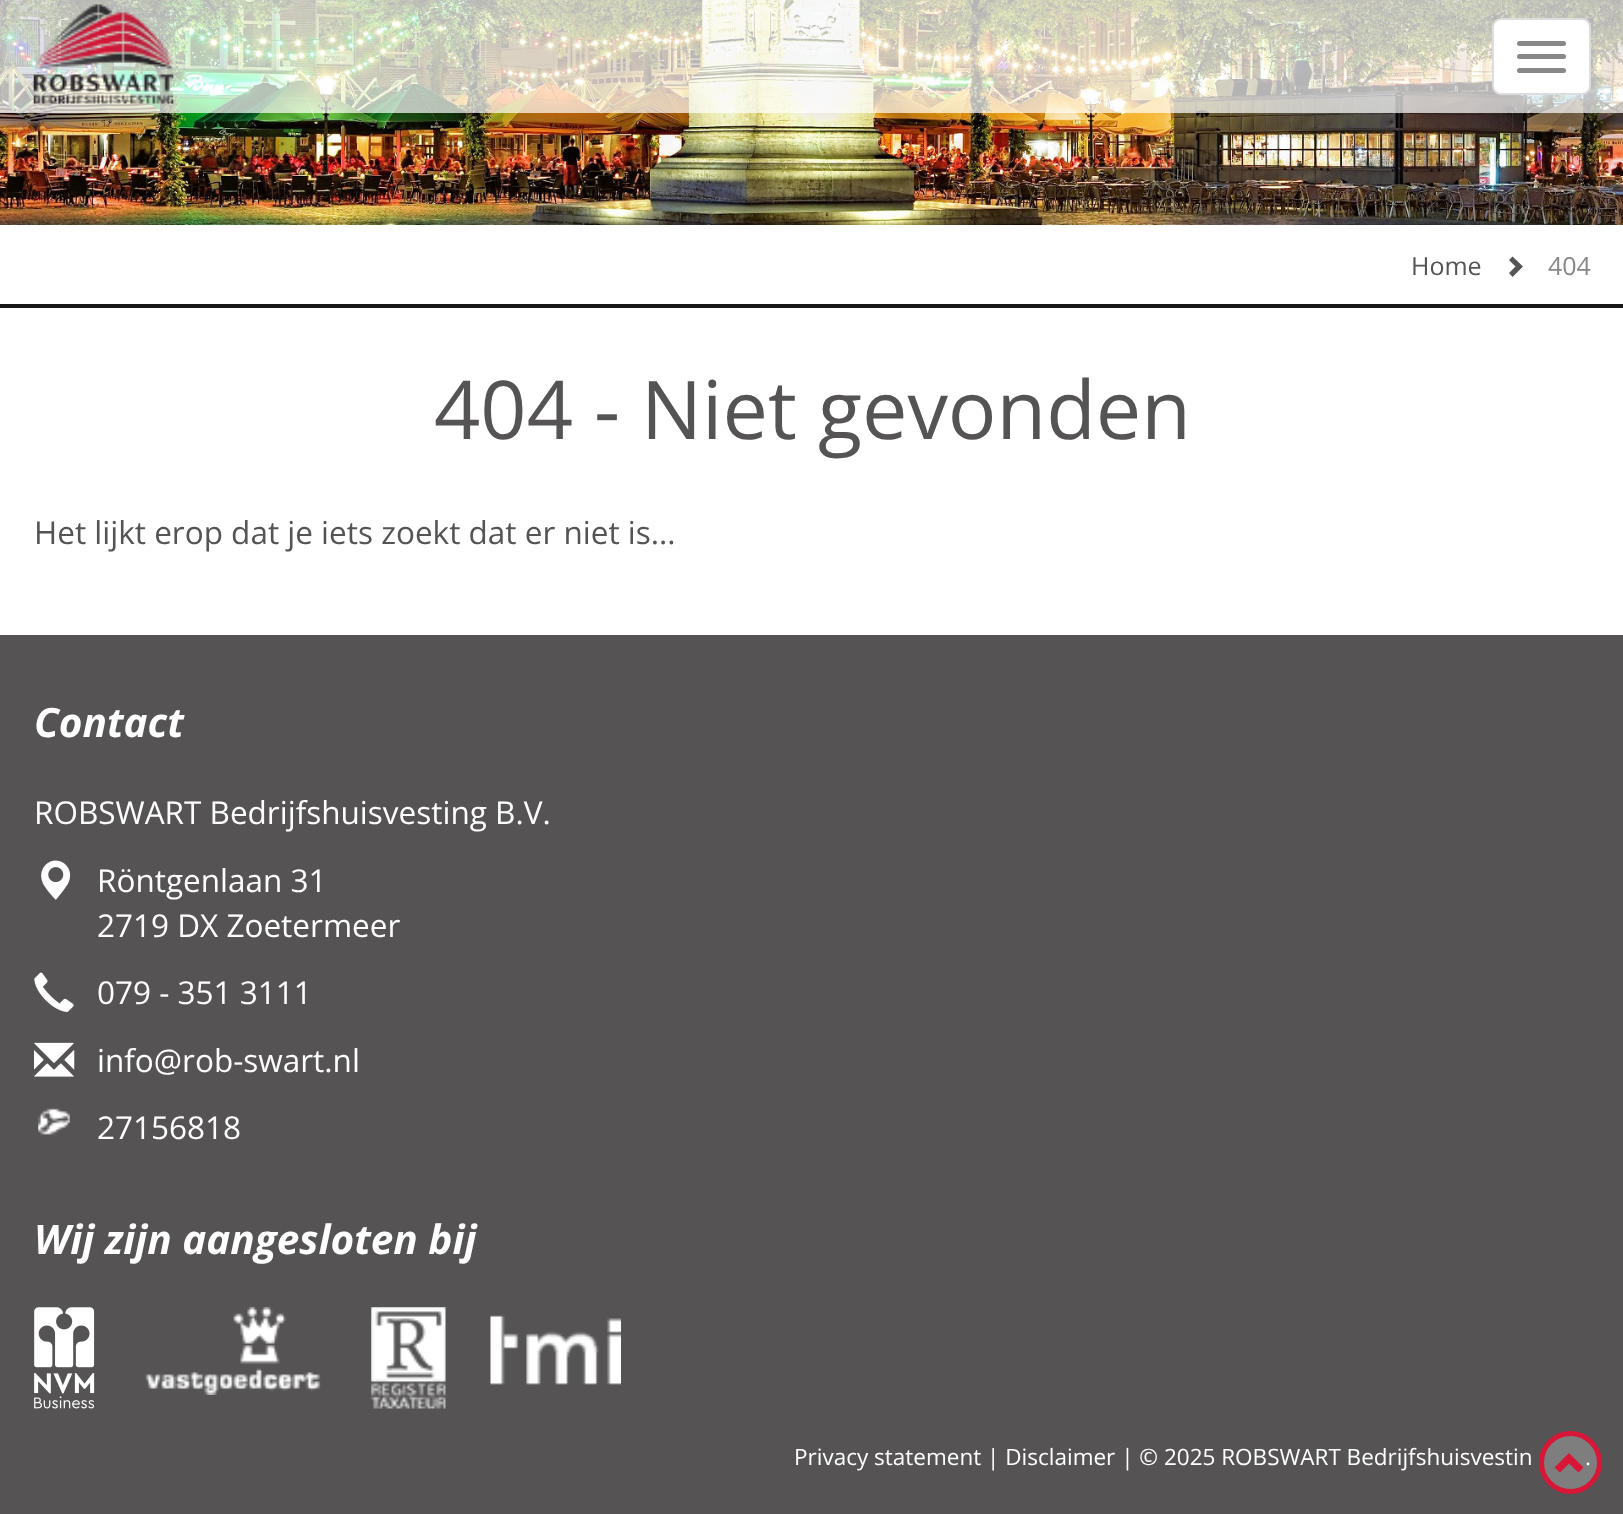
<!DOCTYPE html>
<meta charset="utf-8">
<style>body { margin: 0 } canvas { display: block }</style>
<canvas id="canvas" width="1623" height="1514"></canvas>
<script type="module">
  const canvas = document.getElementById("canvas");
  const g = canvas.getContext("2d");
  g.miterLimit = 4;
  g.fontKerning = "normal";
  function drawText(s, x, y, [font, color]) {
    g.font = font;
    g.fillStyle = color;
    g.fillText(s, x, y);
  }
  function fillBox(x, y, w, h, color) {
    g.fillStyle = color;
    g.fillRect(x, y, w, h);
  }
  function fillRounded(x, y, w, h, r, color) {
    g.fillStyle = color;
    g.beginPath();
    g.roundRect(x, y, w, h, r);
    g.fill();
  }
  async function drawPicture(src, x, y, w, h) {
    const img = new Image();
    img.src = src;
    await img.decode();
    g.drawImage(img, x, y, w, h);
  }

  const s1 = ["25px Open Sans", "#555353"];
  const s2 = ["25px Open Sans", "#888787"];
  const s3 = ["81px Open Sans", "#555353"];
  const s4 = ["31.5px Open Sans", "#555353"];
  const s5 = ["italic bold 40.5px Open Sans", "#FFFFFF"];
  const s6 = ["31.5px Open Sans", "#FFFFFF"];
  const s7 = ["22.5px Open Sans", "#FFFFFF"];

  fillBox(0, 0, 1623, 1514, "#555353");
  await drawPicture("pic1.png", 0, 0, 1623, 225);
  fillBox(0, 0, 1623, 113, "rgba(255, 255, 255, 0.7)");
  await drawPicture("pic2.png", 33, 4, 141, 100);
  g.fillStyle = "#FFFFFF";
  g.beginPath();
  g.roundRect(1493, 19, 97, 75, 8);
  g.fill();
  g.strokeStyle = "#DDDDDD";
  g.lineWidth = 2;
  g.stroke();
  fillRounded(1517, 41, 49, 5, 2.5, "#888888");
  fillRounded(1517, 54, 49, 5, 2.5, "#888888");
  fillRounded(1517, 68, 49, 5, 2.5, "#888888");
  fillBox(0, 225, 1623, 79, "#FFFFFF");
  fillBox(0, 304, 1623, 4, "#17171A");
  drawText("Home", 1411, 275, s1);
  g.beginPath();
  g.moveTo(1523, 266.5);
  g.lineTo(1512.5, 277);
  g.lineTo(1509, 273);
  g.lineTo(1515.5, 266.5);
  g.lineTo(1509, 260);
  g.lineTo(1512.5, 256.5);
  g.closePath();
  g.fill();
  drawText("404", 1548, 275, s2);
  fillBox(0, 308, 1623, 327, "#FFFFFF");
  drawText("404 - Niet gevonden", 434, 439, s3);
  drawText("Het lijkt erop dat je iets zoekt dat er niet is...", 34, 544, s4);
  drawText("Contact", 34, 737, s5);
  drawText("ROBSWART Bedrijfshuisvesting B.V.", 34, 824, s6);
  await drawPicture("pic3.png", 41, 860, 30, 40);
  drawText("Röntgenlaan 31", 97, 892, s6);
  drawText("2719 DX Zoetermeer", 97, 937, s6);
  await drawPicture("pic4.png", 34, 972, 40, 40);
  drawText("079 - 351 3111", 97, 1004, s6);
  await drawPicture("pic5.png", 34, 1042, 41, 35);
  drawText("info@rob-swart.nl", 97, 1072, s6);
  await drawPicture("pic6.png", 38, 1108, 32, 27);
  drawText("27156818", 97, 1139, s6);
  drawText("Wij zijn aangesloten bij", 34, 1254, s5);
  await drawPicture("pic7.png", 34, 1307, 61, 102);
  await drawPicture("pic8.png", 145, 1307, 176, 88);
  await drawPicture("pic9.png", 371, 1307, 75, 102);
  await drawPicture("pic10.png", 490, 1315, 131, 70);
  drawText("Privacy statement | Disclaimer | © 2025 ROBSWART Bedrijfshuisvestin", 794, 1465, s7);
  drawText(".", 1585, 1465, s7);
  g.fillStyle = "rgba(255, 255, 255, 0.25)";
  g.beginPath();
  g.arc(1570.5, 1462.5, 29, 0, Math.PI * 2);
  g.fill();
  g.strokeStyle = "#D71638";
  g.lineWidth = 5;
  g.stroke();
  g.fillStyle = "#D71638";
  g.beginPath();
  g.moveTo(1583.5, 1467.5);
  g.lineTo(1578.5, 1472.5);
  g.lineTo(1569, 1463.5);
  g.lineTo(1560, 1472.5);
  g.lineTo(1554.5, 1467.5);
  g.lineTo(1569, 1453);
  g.closePath();
  g.fill();
</script>
